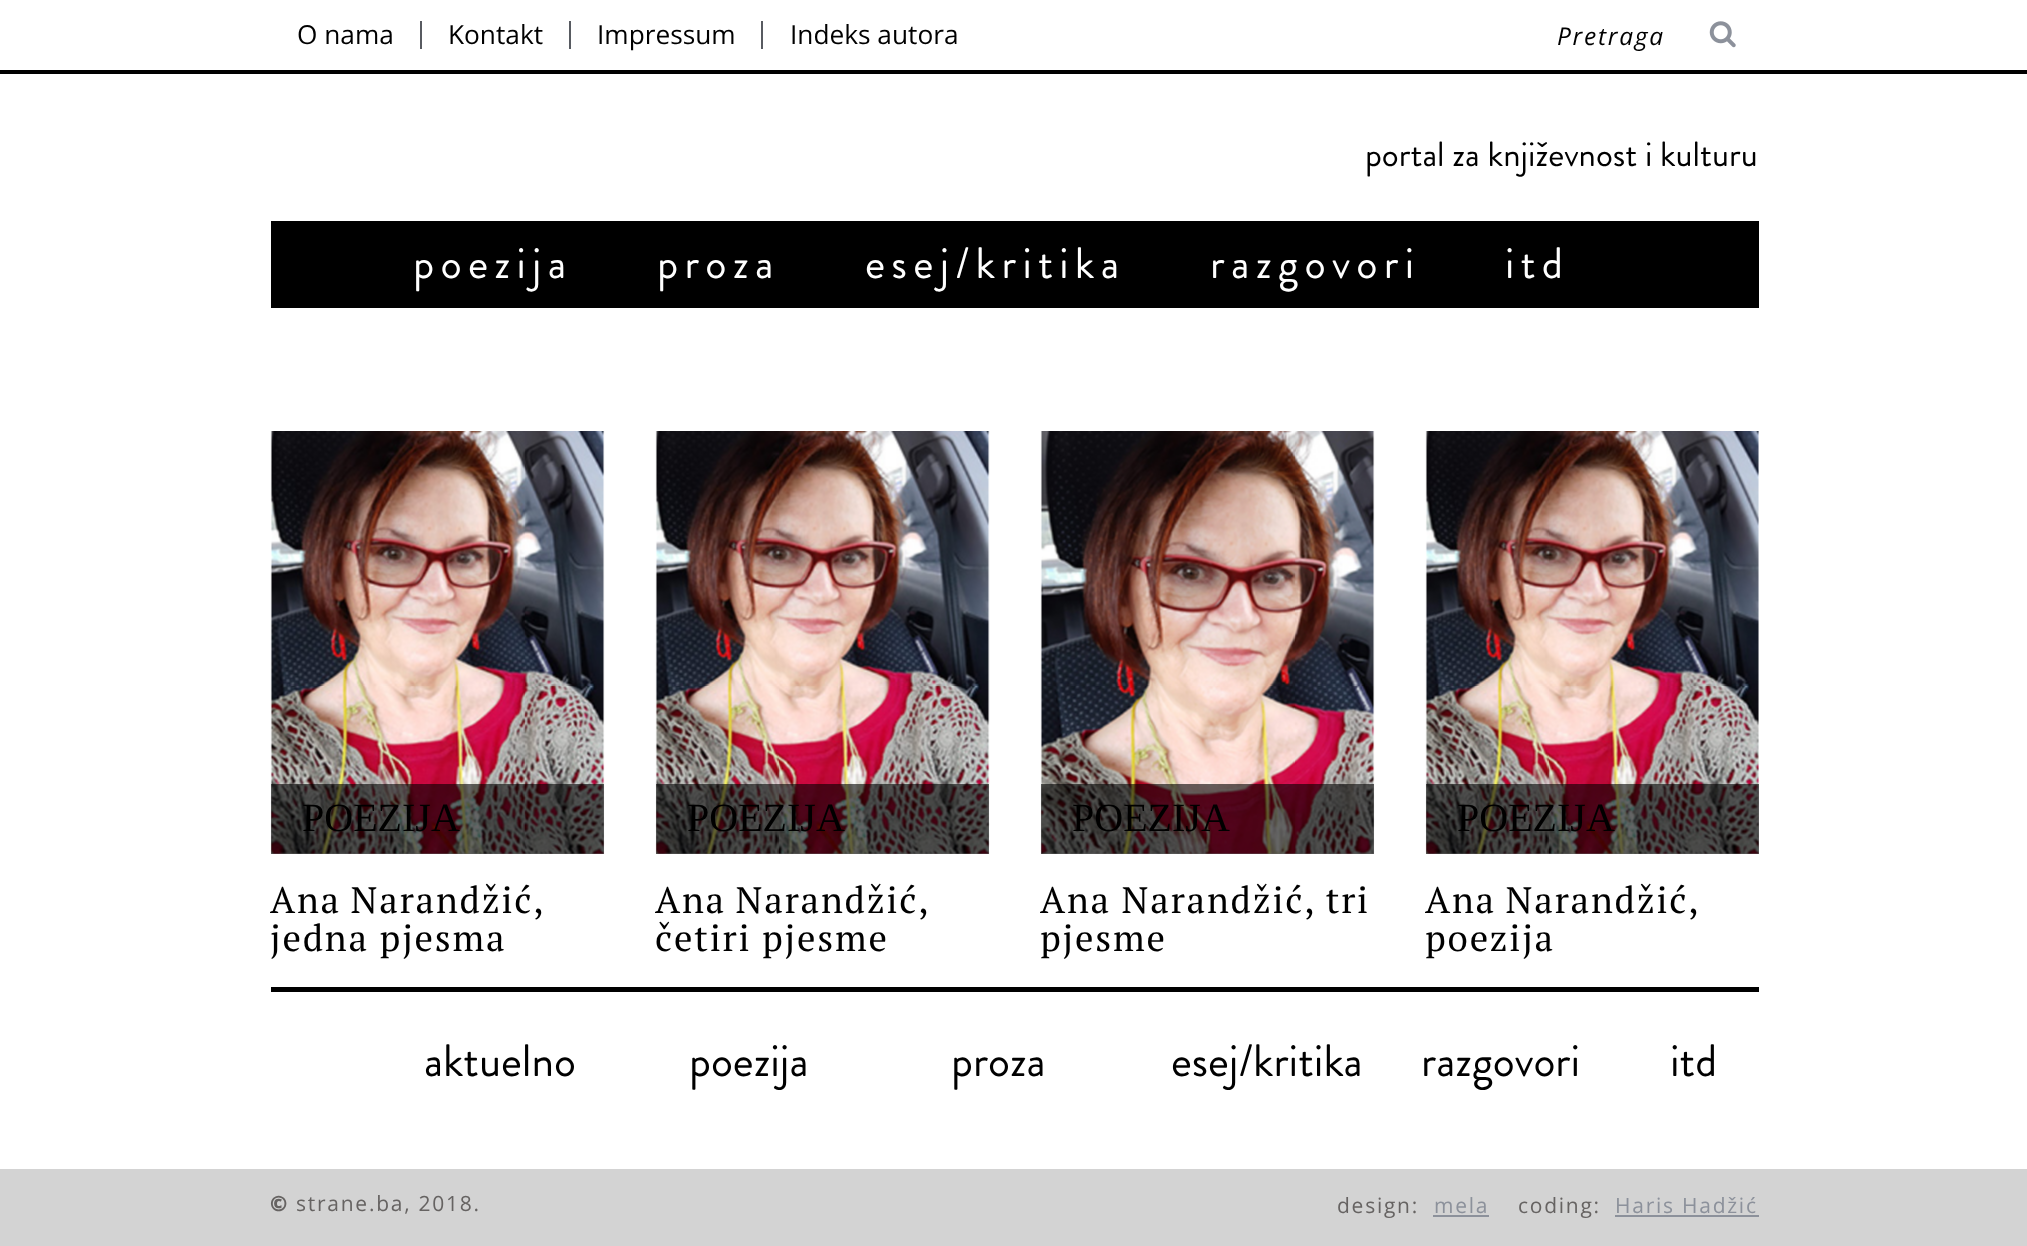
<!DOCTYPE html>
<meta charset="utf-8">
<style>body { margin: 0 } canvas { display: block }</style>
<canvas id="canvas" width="2027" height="1246"></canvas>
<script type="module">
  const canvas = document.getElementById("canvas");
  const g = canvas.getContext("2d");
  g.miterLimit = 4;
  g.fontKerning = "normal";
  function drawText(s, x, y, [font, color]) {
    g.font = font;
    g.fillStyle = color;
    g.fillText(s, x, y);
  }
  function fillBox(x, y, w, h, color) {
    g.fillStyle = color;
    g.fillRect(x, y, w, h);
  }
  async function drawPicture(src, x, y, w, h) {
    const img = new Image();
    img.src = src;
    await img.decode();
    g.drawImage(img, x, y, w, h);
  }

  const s1 = ["26.25px Open Sans", "#000000"];
  const s2 = ["italic 24.5px Open Sans", "#000000"];
  const s3 = ["35px Brandon Grotesque", "#000000"];
  const s4 = ["44px Brandon Grotesque", "#FFFFFF"];
  const s5 = ["40px Liberation Serif", "#000000"];
  const s6 = ["36.75px PT Serif", "#000000"];
  const s7 = ["45.5px Brandon Grotesque", "#000000"];
  const s8 = ["900 21px Noto Sans", "#666362"];
  const s9 = ["21px Open Sans", "#666362"];
  const s10 = ["21px Open Sans", "#8C919B"];

  fillBox(0, 0, 2027, 1246, "#FFFFFF");
  fillBox(0, 70, 2027, 4, "#000000");
  fillBox(420, 21, 2, 28, "#585B61");
  drawText("O nama", 297, 44, s1);
  fillBox(569, 21, 2, 28, "#585B61");
  drawText("Kontakt", 448, 44, s1);
  fillBox(761, 21, 2, 28, "#585B61");
  drawText("Impressum", 597, 44, s1);
  drawText("Indeks autora", 790, 44, s1);
  g.letterSpacing = "1.75px";
  drawText("Pretraga", 1557, 45, s2);
  await drawPicture("pic1.png", 1709, 21, 27, 27);
  g.letterSpacing = "0px";
  drawText("portal za književnost i kulturu", 1365, 166, s3);
  fillBox(271, 221, 1488, 87, "#000000");
  g.letterSpacing = "6.25px";
  drawText("poezija", 413, 278, s4);
  drawText("proza", 657, 278, s4);
  drawText("esej/kritika", 865, 278, s4);
  drawText("razgovori", 1210, 278, s4);
  drawText("itd", 1505, 278, s4);
  await drawPicture("pic2.png", 270, 431, 335, 423);
  fillBox(271, 784, 333, 70, "rgba(0, 0, 0, 0.6)");
  g.letterSpacing = "0px";
  drawText("POEZIJA", 302, 831, s5);
  g.letterSpacing = "1.8px";
  g.wordSpacing = "-1px";
  drawText("Ana Narandžić,", 270, 913, s6);
  g.wordSpacing = "0px";
  drawText("jedna pjesma", 270, 951, s6);
  await drawPicture("pic3.png", 655, 431, 335, 423);
  fillBox(656, 784, 333, 70, "rgba(0, 0, 0, 0.6)");
  g.letterSpacing = "0px";
  drawText("POEZIJA", 687, 831, s5);
  g.letterSpacing = "1.8px";
  g.wordSpacing = "-1px";
  drawText("Ana Narandžić,", 655, 913, s6);
  g.wordSpacing = "0px";
  drawText("četiri pjesme", 655, 951, s6);
  await drawPicture("pic4.png", 1040, 431, 335, 423);
  fillBox(1041, 784, 333, 70, "rgba(0, 0, 0, 0.6)");
  g.letterSpacing = "0px";
  drawText("POEZIJA", 1072, 831, s5);
  g.letterSpacing = "1.8px";
  drawText("Ana Narandžić, tri", 1040, 913, s6);
  drawText("pjesme", 1040, 951, s6);
  await drawPicture("pic5.png", 1425, 431, 334, 423);
  fillBox(1426, 784, 333, 70, "rgba(0, 0, 0, 0.6)");
  g.letterSpacing = "0px";
  drawText("POEZIJA", 1457, 831, s5);
  g.letterSpacing = "1.8px";
  g.wordSpacing = "-1px";
  drawText("Ana Narandžić,", 1425, 913, s6);
  g.wordSpacing = "0px";
  drawText("poezija", 1425, 951, s6);
  fillBox(271, 987, 1488, 5, "#000000");
  g.letterSpacing = "0px";
  drawText("aktuelno", 424, 1076, s7);
  drawText("poezija", 689, 1076, s7);
  drawText("proza", 951, 1076, s7);
  drawText("esej/kritika", 1171, 1076, s7);
  drawText("razgovori", 1421, 1076, s7);
  drawText("itd", 1670, 1076, s7);
  fillBox(0, 1169, 2027, 77, "#D3D3D3");
  g.letterSpacing = "1.75px";
  drawText("©", 270, 1211, s8);
  drawText("strane.ba, 2018.", 296, 1211, s9);
  drawText("design:", 1337, 1213, s9);
  drawText("mela", 1434, 1213, s10);
  fillBox(1433, 1215, 56, 2, "#8C919B");
  drawText("coding:", 1518, 1213, s9);
  drawText("Haris Hadžić", 1615, 1213, s10);
  fillBox(1615, 1215, 144, 2, "#8C919B");
</script>
